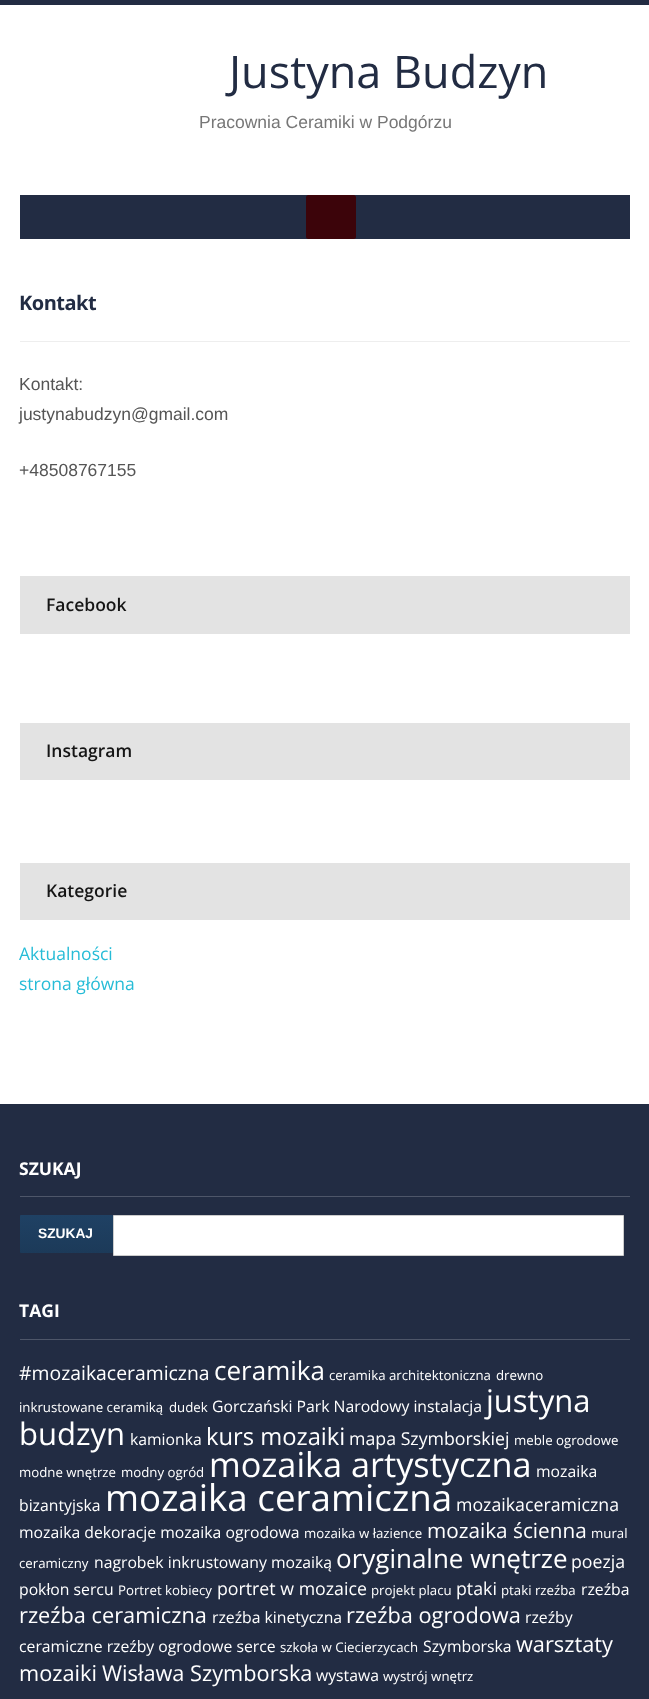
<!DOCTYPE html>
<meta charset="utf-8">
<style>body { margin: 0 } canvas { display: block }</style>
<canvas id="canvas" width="649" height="1699"></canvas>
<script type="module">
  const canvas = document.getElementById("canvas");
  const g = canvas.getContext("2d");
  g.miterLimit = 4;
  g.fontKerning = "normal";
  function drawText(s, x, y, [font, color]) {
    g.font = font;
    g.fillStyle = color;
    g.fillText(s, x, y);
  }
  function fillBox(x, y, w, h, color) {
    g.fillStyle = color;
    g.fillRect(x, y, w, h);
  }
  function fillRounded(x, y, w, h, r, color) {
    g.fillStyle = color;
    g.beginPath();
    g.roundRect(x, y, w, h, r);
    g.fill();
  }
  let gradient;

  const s1 = ["45px Open Sans", "#222C43"];
  const s2 = ["17.5px Liberation Sans", "#777777"];
  const s3 = ["bold 20px Open Sans", "#222C43"];
  const s4 = ["17.5px Liberation Sans", "#555555"];
  const s5 = ["600 17.5px Open Sans", "#151515"];
  const s6 = ["17.5px Open Sans", "#26BCD7"];
  const s7 = ["bold 17.5px Open Sans", "#FFFFFF"];
  const s8 = ["bold 13.75px Liberation Sans", "#FFFFFF"];
  const s9 = ["19.4px Open Sans", "#FFFFFF"];
  const s10 = ["26px Open Sans", "#FFFFFF"];
  const s11 = ["13.25px Open Sans", "#FFFFFF"];
  const s12 = ["15.75px Open Sans", "#FFFFFF"];
  const s13 = ["31px Open Sans", "#FFFFFF"];
  const s14 = ["23.75px Open Sans", "#FFFFFF"];
  const s15 = ["17.75px Open Sans", "#FFFFFF"];
  const s16 = ["34.25px Open Sans", "#FFFFFF"];
  const s17 = ["36.75px Open Sans", "#FFFFFF"];
  const s18 = ["20.75px Open Sans", "#FFFFFF"];
  const s19 = ["21.75px Open Sans", "#FFFFFF"];

  fillBox(0, 0, 649, 1699, "#FFFFFF");
  fillBox(0, 0, 649, 5, "#222C43");
  drawText("Justyna Budzyn", 229, 88, s1);
  drawText("Pracownia Ceramiki w Podgórzu", 199, 128, s2);
  fillBox(20, 195, 610, 44, "#222C43");
  fillRounded(306, 195, 50, 44, 2.5, "#3C040A");
  g.letterSpacing = "-0.5px";
  drawText("Kontakt", 19, 310, s3);
  fillBox(20, 341, 610, 1, "#EEEEEE");
  g.letterSpacing = "0px";
  drawText("Kontakt:", 19, 390, s4);
  drawText("justynabudzyn@gmail.com", 19, 420, s4);
  drawText("+48508767155", 19, 476, s4);
  fillBox(20, 576, 610, 58, "#E3E3E3");
  drawText("Facebook", 46, 611, s5);
  fillBox(20, 723, 610, 57, "#E3E3E3");
  drawText("Instagram", 46, 757, s5);
  fillBox(20, 863, 610, 57, "#E3E3E3");
  drawText("Kategorie", 46, 897, s5);
  drawText("Aktualności", 19, 960, s6);
  drawText("strona główna", 19, 990, s6);
  fillBox(0, 1104, 649, 595, "#222C43");
  fillBox(20, 1196, 610, 1, "#4E5669");
  drawText("SZUKAJ", 19, 1175, s7);
  gradient = g.createLinearGradient(66, 1215, 66, 1253);
  gradient.addColorStop(0, "#1F4164");
  gradient.addColorStop(1, "#1C3A59");
  g.fillStyle = gradient;
  g.beginPath();
  g.roundRect(20, 1215, 93, 38, 1);
  g.fill();
  drawText("SZUKAJ", 38, 1238, s8);
  g.beginPath();
  g.rect(113.5, 1215.5, 510, 40);
  g.fill();
  g.strokeStyle = "#CCCCCC";
  g.stroke();
  fillBox(20, 1339, 610, 1, "#4E5669");
  drawText("TAGI", 19, 1317, s7);
  drawText("#mozaikaceramiczna", 19, 1380, s9);
  drawText("ceramika", 214, 1380, s10);
  drawText("ceramika architektoniczna", 329, 1380, s11);
  drawText("drewno", 496, 1380, s11);
  drawText("inkrustowane ceramiką", 19, 1412, s11);
  drawText("dudek", 169, 1412, s11);
  drawText("Gorczański Park Narodowy instalacja", 212, 1412, s12);
  drawText("justyna", 486, 1412, s13);
  drawText("budzyn", 19, 1445, s13);
  drawText("kamionka", 130, 1445, s12);
  drawText("kurs mozaiki", 206, 1445, s14);
  drawText("mapa Szymborskiej", 349, 1445, s15);
  drawText("meble ogrodowe", 514, 1445, s11);
  drawText("modne wnętrze", 19, 1477, s11);
  drawText("modny ogród", 121, 1477, s11);
  drawText("mozaika artystyczna", 209, 1477, s16);
  drawText("mozaika", 536, 1477, s12);
  drawText("bizantyjska", 19, 1511, s12);
  drawText("mozaika ceramiczna", 105, 1511, s17);
  drawText("mozaikaceramiczna", 456, 1511, s15);
  drawText("mozaika dekoracje mozaika ogrodowa", 19, 1538, s12);
  drawText("mozaika w łazience", 304, 1538, s11);
  drawText("mozaika ścienna", 427, 1538, s18);
  drawText("mural", 591, 1538, s11);
  drawText("ceramiczny", 19, 1568, s11);
  drawText("nagrobek inkrustowany mozaiką", 94, 1568, s12);
  drawText("oryginalne wnętrze", 336, 1568, s10);
  drawText("poezja", 571, 1568, s15);
  drawText("pokłon sercu", 19, 1595, s12);
  drawText("Portret kobiecy", 118, 1595, s11);
  drawText("portret w mozaice", 217, 1595, s15);
  drawText("projekt placu", 371, 1595, s11);
  drawText("ptaki", 456, 1595, s15);
  drawText("ptaki rzeźba", 501, 1595, s11);
  drawText("rzeźba", 581, 1595, s12);
  drawText("rzeźba ceramiczna", 19, 1623, s19);
  drawText("rzeźba kinetyczna", 212, 1623, s12);
  drawText("rzeźba ogrodowa", 346, 1623, s19);
  drawText("rzeźby", 525, 1623, s12);
  drawText("ceramiczne rzeźby ogrodowe serce", 19, 1652, s12);
  drawText("szkoła w Ciecierzycach", 280, 1652, s11);
  drawText("Szymborska", 423, 1652, s12);
  drawText("warsztaty", 516, 1652, s19);
  drawText("mozaiki", 19, 1681, s19);
  drawText("Wisława Szymborska", 102, 1681, s19);
  drawText("wystawa", 316, 1681, s12);
  drawText("wystrój wnętrz", 383, 1681, s11);
</script>
